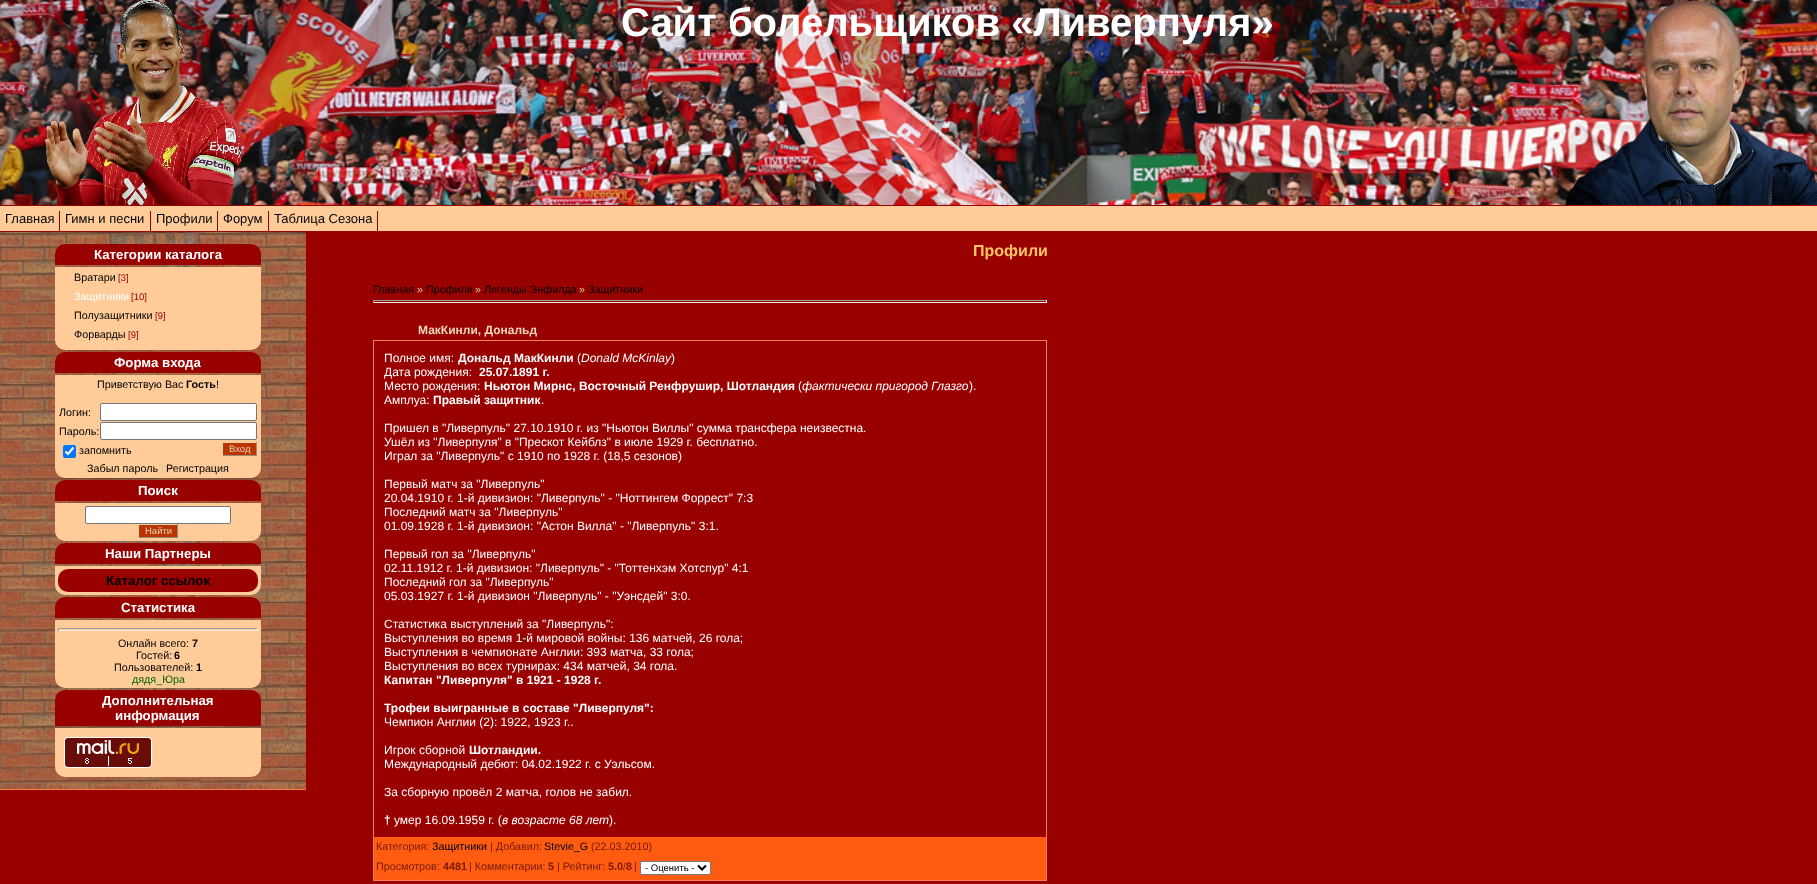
<!DOCTYPE html>
<meta charset="utf-8">
<style>body { margin: 0 } canvas { display: block }</style>
<canvas id="canvas" width="1817" height="884"></canvas>
<script type="module">
  const canvas = document.getElementById("canvas");
  const g = canvas.getContext("2d");
  g.miterLimit = 4;
  g.fontKerning = "normal";
  function drawText(s, x, y, [font, color]) {
    g.font = font;
    g.fillStyle = color;
    g.fillText(s, x, y);
  }
  function fillBox(x, y, w, h, color) {
    g.fillStyle = color;
    g.fillRect(x, y, w, h);
  }
  function fillRounded(x, y, w, h, r, color) {
    g.fillStyle = color;
    g.beginPath();
    g.roundRect(x, y, w, h, r);
    g.fill();
  }
  async function drawPicture(src, x, y, w, h) {
    const img = new Image();
    img.src = src;
    await img.decode();
    g.drawImage(img, x, y, w, h);
  }

  const s1 = ["bold 40px Liberation Sans", "#FFFFFF"];
  const s2 = ["13px Liberation Sans", "#000000"];
  const s3 = ["bold 13.25px Liberation Sans", "#FFFFFF"];
  const s4 = ["10.75px Liberation Sans", "#000000"];
  const s5 = ["9.5px Liberation Sans", "#990000"];
  const s6 = ["10.75px Liberation Sans", "#FFFFFF"];
  const s7 = ["bold 10.75px Liberation Sans", "#000000"];
  const s8 = ["9.5px Liberation Sans", "#EBD1B4"];
  const s9 = ["10.75px Liberation Sans", "#CCCC99"];
  const s10 = ["bold 13.25px Liberation Sans", "#000000"];
  const s11 = ["10.75px Liberation Sans", "#006400"];
  const s12 = ["bold 16px Liberation Sans", "#FFC565"];
  const s13 = ["bold 12px Liberation Sans", "#F3D9BB"];
  const s14 = ["12px Liberation Sans", "#FFFFFF"];
  const s15 = ["bold 12px Liberation Sans", "#FFFFFF"];
  const s16 = ["italic 12px Liberation Sans", "#FFFFFF"];
  const s17 = ["10.75px Liberation Sans", "#781903"];
  const s18 = ["bold 10.75px Liberation Sans", "#781903"];
  const s19 = ["9.5px Liberation Sans", "#000000"];

  fillBox(0, 0, 1817, 884, "#990000");
  await drawPicture("pic1.png", 0, 0, 1817, 205);
  await drawPicture("pic2.png", 45, 0, 198, 205);
  drawText("Сайт болельщиков «Ливерпуля»", 621, 36, s1);
  await drawPicture("pic3.png", 1565, 1, 252, 204);
  fillBox(0, 206, 1817, 25, "#FFCC99");
  fillBox(59, 211, 1, 20, "#990000");
  drawText("Главная", 5, 223, s2);
  fillBox(150, 211, 1, 20, "#990000");
  drawText("Гимн и песни", 65, 223, s2);
  fillBox(217, 211, 1, 20, "#990000");
  drawText("Профили", 156, 223, s2);
  fillBox(268, 211, 1, 20, "#990000");
  drawText("Форум", 223, 223, s2);
  fillBox(377, 211, 1, 20, "#990000");
  drawText("Таблица Сезона", 274, 223, s2);
  await drawPicture("pic4.png", 0, 232, 306, 557);
  fillBox(0, 789, 306, 1, "#F48050");
  g.fillStyle = "#990000";
  g.beginPath();
  g.roundRect(55, 244, 206, 21, [10, 10, 0, 0]);
  g.fill();
  drawText("Категории каталога", 94, 259, s3);
  g.fillStyle = "#FFCC99";
  g.beginPath();
  g.roundRect(55, 267, 206, 83, [0, 0, 10, 10]);
  g.fill();
  drawText("Вратари", 74, 281, s4);
  drawText("[3]", 118, 281, s5);
  drawText("Защитники", 74, 300, s6);
  drawText("[10]", 131, 300, s5);
  drawText("Полузащитники", 74, 319, s4);
  drawText("[9]", 155, 319, s5);
  drawText("Форварды", 74, 338, s4);
  drawText("[9]", 128, 338, s5);
  g.beginPath();
  g.roundRect(55, 352, 206, 21, [10, 10, 0, 0]);
  g.fill();
  drawText("Форма входа", 114, 367, s3);
  g.fillStyle = "#FFCC99";
  g.beginPath();
  g.roundRect(55, 375, 206, 103, [0, 0, 10, 10]);
  g.fill();
  drawText("Приветствую Вас", 97, 388, s4);
  drawText("Гость", 186, 388, s7);
  drawText("!", 216, 388, s4);
  drawText("Логин:", 59, 416, s4);
  g.fillStyle = "#FFFFFF";
  g.beginPath();
  g.roundRect(100.5, 403.5, 156, 17, 1.5);
  g.fill();
  g.strokeStyle = "#767676";
  g.stroke();
  drawText("Пароль:", 59, 435, s4);
  g.fillStyle = "#FFFFFF";
  g.beginPath();
  g.roundRect(100.5, 422.5, 156, 17, 1.5);
  g.fill();
  g.stroke();
  fillRounded(63, 445, 13, 13, 2, "#0075FF");
  g.beginPath();
  g.moveTo(65.5, 451.5);
  g.lineTo(68, 454);
  g.lineTo(73.5, 447.5);
  g.strokeStyle = "#FFFFFF";
  g.lineWidth = 2.1;
  g.stroke();
  drawText("запомнить", 79, 454, s4);
  fillBox(223, 443, 33, 12, "#B93601");
  fillBox(222, 442, 35, 1, "#EBD1B4");
  fillBox(256, 442, 1, 14, "#9D8B78");
  fillBox(222, 455, 35, 1, "#9D8B78");
  fillBox(222, 442, 1, 14, "#EBD1B4");
  drawText("Вход", 229, 452, s8);
  drawText("Забыл пароль", 87, 472, s4);
  drawText("|", 161, 472, s9);
  drawText("Регистрация", 166, 472, s4);
  g.fillStyle = "#990000";
  g.beginPath();
  g.roundRect(55, 480, 206, 21, [10, 10, 0, 0]);
  g.fill();
  drawText("Поиск", 138, 495, s3);
  g.fillStyle = "#FFCC99";
  g.beginPath();
  g.roundRect(55, 503, 206, 38, [0, 0, 10, 10]);
  g.fill();
  g.fillStyle = "#FFFFFF";
  g.beginPath();
  g.roundRect(85.5, 506.5, 145, 17, 1.5);
  g.fill();
  g.strokeStyle = "#767676";
  g.lineWidth = 1;
  g.stroke();
  fillBox(139, 525, 38, 12, "#B93601");
  fillBox(138, 524, 40, 1, "#EBD1B4");
  fillBox(177, 524, 1, 14, "#9D8B78");
  fillBox(138, 537, 40, 1, "#9D8B78");
  fillBox(138, 524, 1, 14, "#EBD1B4");
  drawText("Найти", 145, 534, s8);
  g.fillStyle = "#990000";
  g.beginPath();
  g.roundRect(55, 543, 206, 21, [10, 10, 0, 0]);
  g.fill();
  drawText("Наши Партнеры", 105, 558, s3);
  g.fillStyle = "#FFCC99";
  g.beginPath();
  g.roundRect(55, 566, 206, 29, [0, 0, 10, 10]);
  g.fill();
  fillRounded(58, 569, 200, 23, 10, "#990000");
  drawText("Каталог ссылок", 106, 585, s10);
  g.fillStyle = "#990000";
  g.beginPath();
  g.roundRect(55, 597, 206, 21, [10, 10, 0, 0]);
  g.fill();
  drawText("Статистика", 121, 612, s3);
  g.fillStyle = "#FFCC99";
  g.beginPath();
  g.roundRect(55, 620, 206, 68, [0, 0, 10, 10]);
  g.fill();
  fillBox(58, 628, 200, 1, "#9F9F9F");
  fillBox(257, 628, 1, 3, "#EEEEEE");
  fillBox(58, 630, 200, 1, "#EEEEEE");
  fillBox(58, 628, 1, 3, "#9F9F9F");
  drawText("Онлайн всего:", 118, 647, s4);
  drawText("7", 192, 647, s7);
  drawText("Гостей:", 136, 659, s4);
  drawText("6", 174, 659, s7);
  drawText("Пользователей:", 114, 671, s4);
  drawText("1", 196, 671, s7);
  drawText("дядя_Юра", 132, 683, s11);
  g.fillStyle = "#990000";
  g.beginPath();
  g.roundRect(55, 690, 206, 36, [10, 10, 0, 0]);
  g.fill();
  drawText("Дополнительная", 102, 705, s3);
  drawText("информация", 115, 720, s3);
  g.fillStyle = "#FFCC99";
  g.beginPath();
  g.roundRect(55, 728, 206, 49, [0, 0, 10, 10]);
  g.fill();
  await drawPicture("pic5.png", 64, 737, 88, 31);
  drawText("Профили", 973, 256, s12);
  drawText("Главная", 373, 293, s4);
  drawText("»", 417, 293, s9);
  drawText("Профили", 426, 293, s4);
  drawText("»", 475, 293, s9);
  drawText("Легенды Энфилда", 484, 293, s4);
  drawText("»", 579, 293, s9);
  drawText("Защитники", 588, 293, s4);
  fillBox(373, 300, 674, 1, "#9F9F9F");
  fillBox(1046, 300, 1, 3, "#EEEEEE");
  fillBox(373, 302, 674, 1, "#EEEEEE");
  fillBox(373, 300, 1, 3, "#9F9F9F");
  drawText("МакКинли, Дональд", 418, 334, s13);
  g.strokeStyle = "#F48050";
  g.strokeRect(373.5, 340.5, 673, 540);
  drawText("Полное имя:", 384, 362, s14);
  drawText("Дональд МакКинли", 458, 362, s15);
  drawText("(", 577, 362, s14);
  drawText("Donald McKinlay", 581, 362, s16);
  drawText(")", 671, 362, s14);
  drawText("Дата рождения:", 384, 376, s14);
  drawText("25.07.1891 г.", 479, 376, s15);
  drawText("Место рождения:", 384, 390, s14);
  drawText("Ньютон Мирнс, Восточный Ренфрушир, Шотландия", 484, 390, s15);
  drawText("(", 798, 390, s14);
  drawText("фактически пригород Глазго", 802, 390, s16);
  drawText(").", 969, 390, s14);
  drawText("Амплуа:", 384, 404, s14);
  drawText("Правый защитник", 433, 404, s15);
  drawText(".", 541, 404, s14);
  drawText("Пришел в \"Ливерпуль\" 27.10.1910 г. из \"Ньютон Виллы\" сумма трансфера неизвестна.", 384, 432, s14);
  drawText("Ушёл из \"Ливерпуля\" в \"Прескот Кейблз\" в июле 1929 г. бесплатно.", 384, 446, s14);
  drawText("Играл за \"Ливерпуль\" с 1910 по 1928 г. (18,5 сезонов)", 384, 460, s14);
  drawText("Первый матч за \"Ливерпуль\"", 384, 488, s14);
  drawText("20.04.1910 г. 1-й дивизион: \"Ливерпуль\" - \"Ноттингем Форрест\" 7:3", 384, 502, s14);
  drawText("Последний матч за \"Ливерпуль\"", 384, 516, s14);
  drawText("01.09.1928 г. 1-й дивизион: \"Астон Вилла\" - \"Ливерпуль\" 3:1.", 384, 530, s14);
  drawText("Первый гол за \"Ливерпуль\"", 384, 558, s14);
  drawText("02.11.1912 г. 1-й дивизион: \"Ливерпуль\" - \"Тоттенхэм Хотспур\" 4:1", 384, 572, s14);
  drawText("Последний гол за \"Ливерпуль\"", 384, 586, s14);
  drawText("05.03.1927 г. 1-й дивизион \"Ливерпуль\" - \"Уэнсдей\" 3:0.", 384, 600, s14);
  drawText("Статистика выступлений за \"Ливерпуль\":", 384, 628, s14);
  drawText("Выступления во время 1-й мировой войны: 136 матчей, 26 гола;", 384, 642, s14);
  drawText("Выступления в чемпионате Англии: 393 матча, 33 гола;", 384, 656, s14);
  drawText("Выступления во всех турнирах: 434 матчей, 34 гола.", 384, 670, s14);
  drawText("Капитан \"Ливерпуля\" в 1921 - 1928 г.", 384, 684, s15);
  drawText("Трофеи выигранные в составе \"Ливерпуля\":", 384, 712, s15);
  drawText("Чемпион Англии (2): 1922, 1923 г..", 384, 726, s14);
  drawText("Игрок сборной", 384, 754, s14);
  drawText("Шотландии.", 469, 754, s15);
  drawText("Международный дебют: 04.02.1922 г. с Уэльсом.", 384, 768, s14);
  drawText("За сборную провёл 2 матча, голов не забил.", 384, 796, s14);
  drawText("†", 384, 824, s15);
  drawText("умер 16.09.1959 г. (", 394, 824, s14);
  drawText("в возрасте 68 лет", 502, 824, s16);
  drawText(").", 609, 824, s14);
  fillBox(374, 837, 672, 43, "#FF5C12");
  drawText("Категория:", 376, 850, s17);
  drawText("Защитники", 432, 850, s4);
  drawText("| Добавил:", 490, 850, s17);
  drawText("Stevie_G", 544, 850, s4);
  drawText("(22.03.2010)", 591, 850, s17);
  drawText("Просмотров:", 376, 870, s17);
  drawText("4481", 443, 870, s18);
  drawText("| Комментарии:", 469, 870, s17);
  drawText("5", 548, 870, s18);
  drawText("| Рейтинг:", 557, 870, s17);
  drawText("5.0", 608, 870, s18);
  drawText("/", 623, 870, s17);
  drawText("8", 626, 870, s18);
  drawText("|", 634, 870, s17);
  g.fillStyle = "#FFFFFF";
  g.beginPath();
  g.roundRect(640.5, 861.5, 70, 13, 1.5);
  g.fill();
  g.strokeStyle = "#767676";
  g.stroke();
  g.beginPath();
  g.moveTo(698, 865.5);
  g.lineTo(702, 869.5);
  g.lineTo(706, 865.5);
  g.strokeStyle = "#000000";
  g.lineWidth = 2;
  g.stroke();
  drawText("- Оценить -", 645, 871, s19);
</script>
